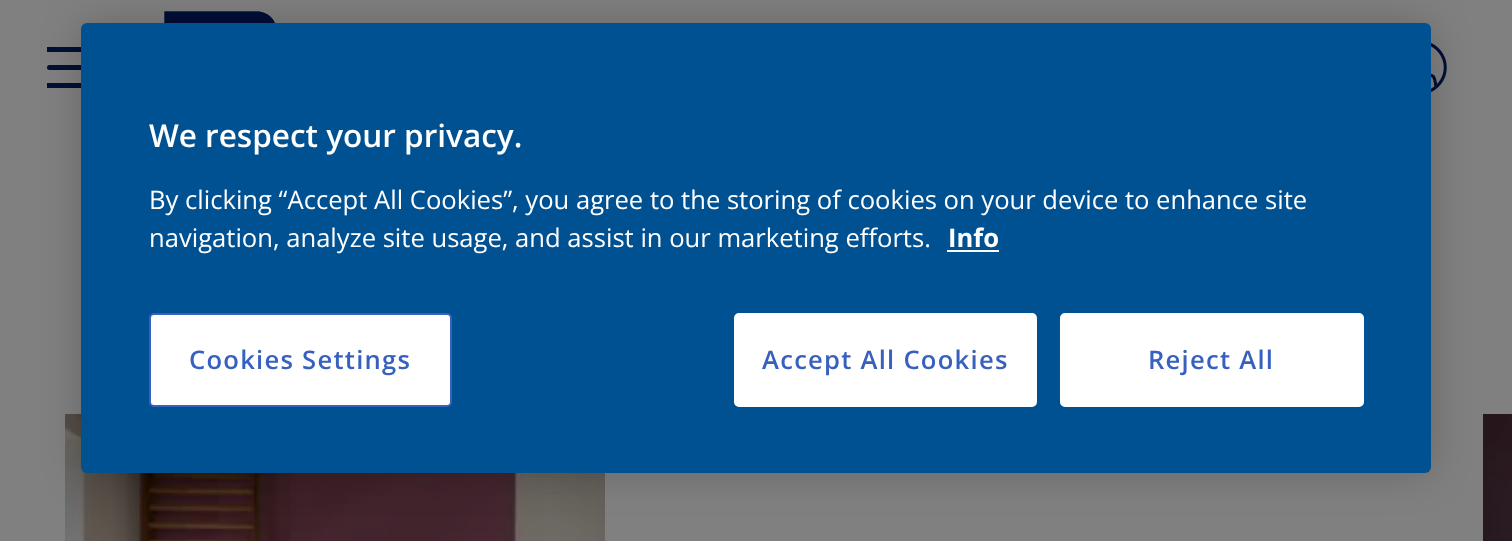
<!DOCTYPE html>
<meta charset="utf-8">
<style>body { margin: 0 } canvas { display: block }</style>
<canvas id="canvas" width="1512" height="541"></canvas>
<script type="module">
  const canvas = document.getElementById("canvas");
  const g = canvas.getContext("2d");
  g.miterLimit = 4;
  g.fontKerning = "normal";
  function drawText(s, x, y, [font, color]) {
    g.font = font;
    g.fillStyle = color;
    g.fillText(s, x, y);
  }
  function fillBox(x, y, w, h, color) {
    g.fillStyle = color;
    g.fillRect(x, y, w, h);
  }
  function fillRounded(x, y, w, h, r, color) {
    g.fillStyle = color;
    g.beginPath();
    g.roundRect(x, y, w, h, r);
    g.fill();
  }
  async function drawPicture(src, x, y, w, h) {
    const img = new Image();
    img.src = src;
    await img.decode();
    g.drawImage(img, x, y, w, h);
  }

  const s1 = ["600 31.5px Open Sans", "#FFFFFF"];
  const s2 = ["25.6px Open Sans", "#FFFFFF"];
  const s3 = ["bold 25.6px Open Sans", "#FFFFFF"];
  const s4 = ["600 25.6px Open Sans", "#3860BE"];

  fillBox(0, 0, 1512, 541, "#808080");
  await drawPicture("pic1.png", 164, 11, 111, 12);
  fillRounded(47, 65, 54, 5, 2.5, "#011135");
  fillBox(47, 47, 34, 5, "#011135");
  fillBox(47, 83, 34, 5, "#011135");
  await drawPicture("pic2.png", 1431, 43, 16, 49);
  await drawPicture("pic3.png", 65, 414, 540, 127);
  await drawPicture("pic4.png", 1483, 414, 29, 127);
  g.fillStyle = "rgba(0, 0, 0, 0.2)";
  g.filter = "blur(20px)";
  g.beginPath();
  g.roundRect(81, 23, 1350, 450, 6);
  g.fill();
  g.filter = "none";
  fillRounded(81, 23, 1350, 450, 6, "#005192");
  drawText("We respect your privacy.", 149, 147, s1);
  drawText("By clicking “Accept All Cookies”, you agree to the storing of cookies on your device to enhance site", 149, 209, s2);
  drawText("navigation, analyze site usage, and assist in our marketing efforts.", 149, 247, s2);
  drawText("Info", 948, 247, s3);
  fillBox(947, 250, 52, 2, "#FAFBFF");
  g.fillStyle = "#FFFFFF";
  g.beginPath();
  g.roundRect(150, 314, 301, 92, 4);
  g.fill();
  g.strokeStyle = "#3860BE";
  g.lineWidth = 2;
  g.stroke();
  g.letterSpacing = "1.25px";
  drawText("Cookies Settings", 189, 369, s4);
  g.fillStyle = "#FFFFFF";
  g.beginPath();
  g.roundRect(735, 314, 301, 92, 4);
  g.fill();
  g.strokeStyle = "#FFFFFF";
  g.stroke();
  drawText("Accept All Cookies", 762, 369, s4);
  g.fillStyle = "#FFFFFF";
  g.beginPath();
  g.roundRect(1061, 314, 302, 92, 4);
  g.fill();
  g.stroke();
  drawText("Reject All", 1148, 369, s4);
</script>
